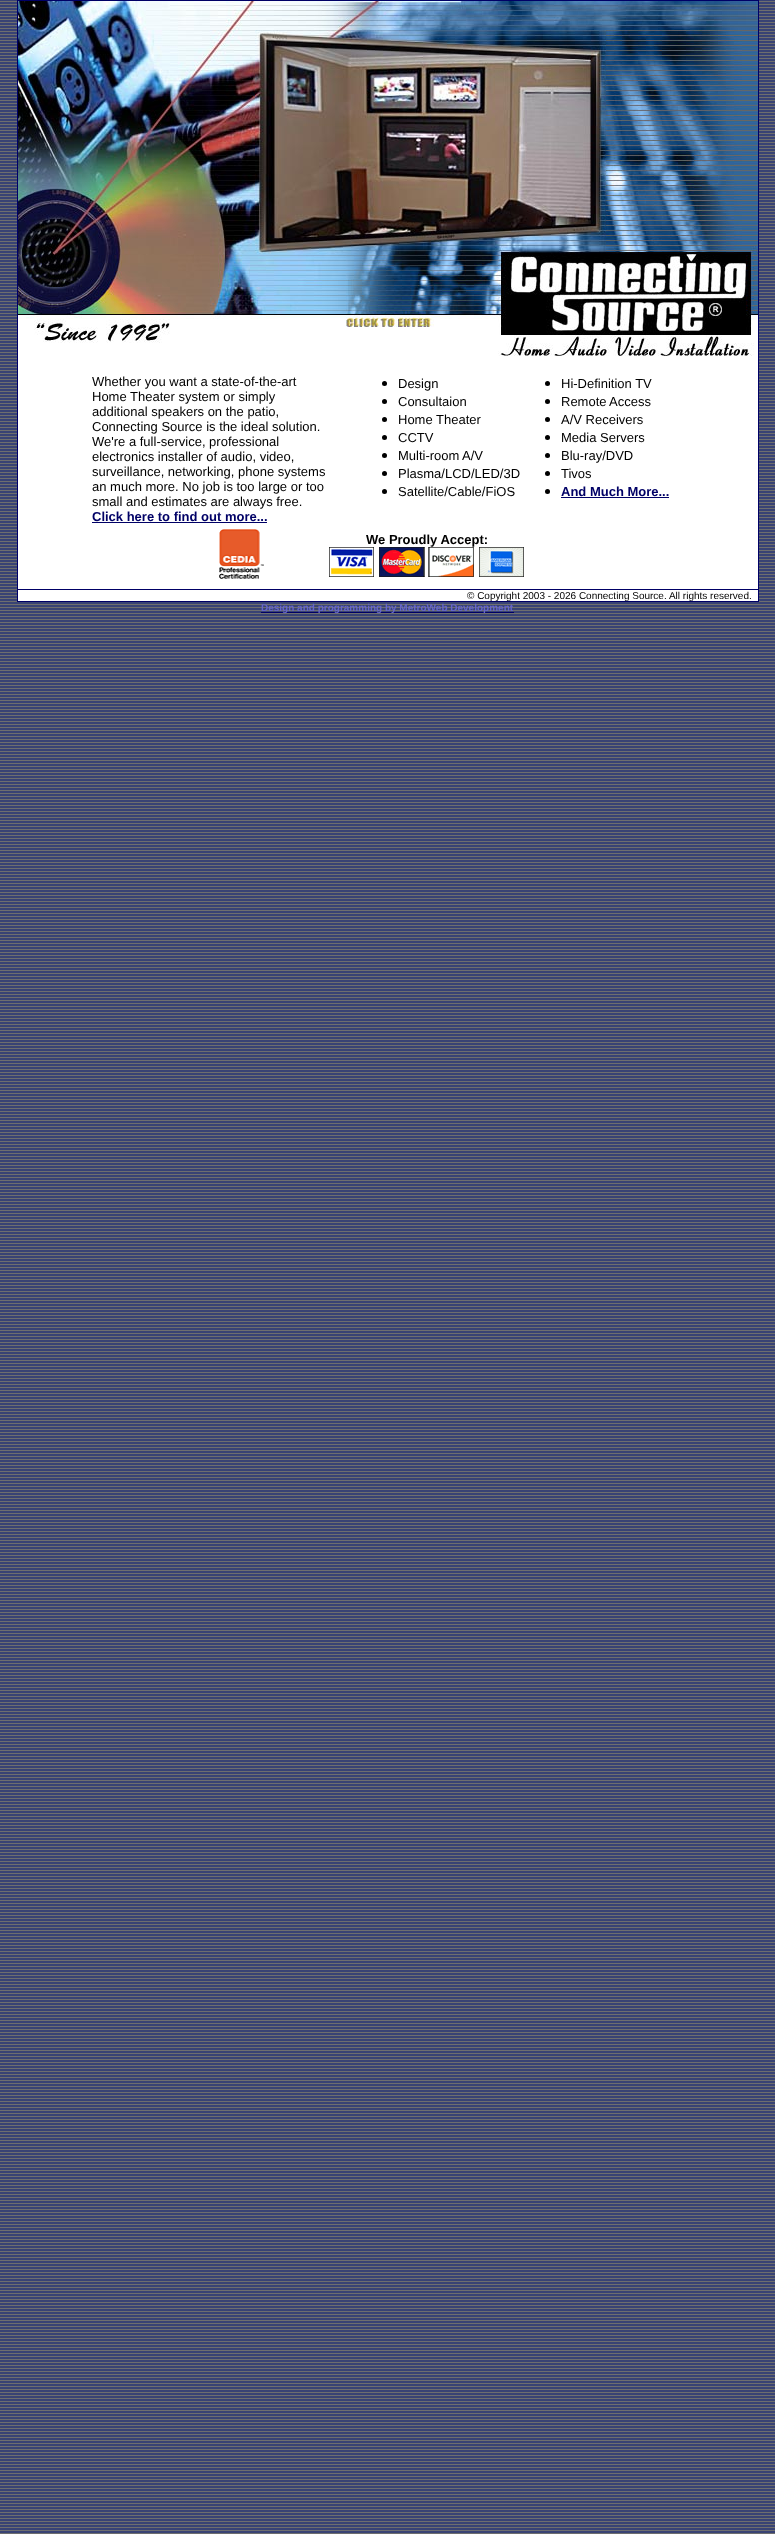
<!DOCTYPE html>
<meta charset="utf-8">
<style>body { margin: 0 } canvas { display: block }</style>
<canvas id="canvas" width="775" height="2534"></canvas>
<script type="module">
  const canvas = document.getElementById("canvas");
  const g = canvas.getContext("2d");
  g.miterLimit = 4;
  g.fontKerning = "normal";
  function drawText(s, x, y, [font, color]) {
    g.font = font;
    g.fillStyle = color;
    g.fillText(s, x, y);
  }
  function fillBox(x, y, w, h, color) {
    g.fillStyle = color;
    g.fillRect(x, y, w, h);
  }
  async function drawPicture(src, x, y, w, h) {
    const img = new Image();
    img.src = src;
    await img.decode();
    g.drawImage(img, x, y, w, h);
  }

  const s1 = ["13px Liberation Sans", "#000000"];
  const s2 = ["bold 13px Liberation Sans", "#000066"];
  const s3 = ["bold 13px Liberation Sans", "#000000"];
  const s4 = ["10px Liberation Sans", "#000000"];
  const s5 = ["bold 10px Liberation Sans", "#6666CC"];

  fillBox(0, 0, 775, 2534, "#394374");
  await drawPicture("pic1.png", 0, 1, 775, 2533);
  fillBox(17, 0, 742, 602, "#000066");
  fillBox(18, 356, 740, 245, "#FFFFFF");
  await drawPicture("pic2.png", 18, 1, 740, 29);
  await drawPicture("pic3.png", 18, 30, 237, 225);
  await drawPicture("pic4.png", 255, 30, 351, 225);
  await drawPicture("pic5.png", 606, 30, 152, 225);
  await drawPicture("pic6.png", 18, 255, 740, 101);
  drawText("Whether you want a state-of-the-art", 92, 386, s1);
  drawText("Home Theater system or simply", 92, 401, s1);
  drawText("additional speakers on the patio,", 92, 416, s1);
  drawText("Connecting Source is the ideal solution.", 92, 431, s1);
  drawText("We're a full-service, professional", 92, 446, s1);
  drawText("electronics installer of audio, video,", 92, 461, s1);
  drawText("surveillance, networking, phone systems", 92, 476, s1);
  drawText("an much more. No job is too large or too", 92, 491, s1);
  drawText("small and estimates are always free.", 92, 506, s1);
  drawText("Click here to find out more...", 92, 521, s2);
  fillBox(92, 522, 175, 1, "#000066");
  g.fillStyle = "#000000";
  g.beginPath();
  g.arc(384.5, 383.5, 2.5, 0, Math.PI * 2);
  g.fill();
  drawText("Design", 398, 388, s1);
  g.beginPath();
  g.arc(384.5, 401.5, 2.5, 0, Math.PI * 2);
  g.fill();
  drawText("Consultaion", 398, 406, s1);
  g.beginPath();
  g.arc(384.5, 419.5, 2.5, 0, Math.PI * 2);
  g.fill();
  drawText("Home Theater", 398, 424, s1);
  g.beginPath();
  g.arc(384.5, 437.5, 2.5, 0, Math.PI * 2);
  g.fill();
  drawText("CCTV", 398, 442, s1);
  g.beginPath();
  g.arc(384.5, 455.5, 2.5, 0, Math.PI * 2);
  g.fill();
  drawText("Multi-room", 398, 460, s1);
  drawText("A/V", 462, 460, s1);
  g.beginPath();
  g.arc(384.5, 473.5, 2.5, 0, Math.PI * 2);
  g.fill();
  drawText("Plasma/LCD/LED/3D", 398, 478, s1);
  g.beginPath();
  g.arc(384.5, 491.5, 2.5, 0, Math.PI * 2);
  g.fill();
  drawText("Satellite/Cable/FiOS", 398, 496, s1);
  g.beginPath();
  g.arc(547.5, 383.5, 2.5, 0, Math.PI * 2);
  g.fill();
  drawText("Hi-Definition TV", 561, 388, s1);
  g.beginPath();
  g.arc(547.5, 401.5, 2.5, 0, Math.PI * 2);
  g.fill();
  drawText("Remote", 561, 406, s1);
  drawText("Access", 609, 406, s1);
  g.beginPath();
  g.arc(547.5, 419.5, 2.5, 0, Math.PI * 2);
  g.fill();
  drawText("A/V Receivers", 561, 424, s1);
  g.beginPath();
  g.arc(547.5, 437.5, 2.5, 0, Math.PI * 2);
  g.fill();
  drawText("Media Servers", 561, 442, s1);
  g.beginPath();
  g.arc(547.5, 455.5, 2.5, 0, Math.PI * 2);
  g.fill();
  drawText("Blu-ray/DVD", 561, 460, s1);
  g.beginPath();
  g.arc(547.5, 473.5, 2.5, 0, Math.PI * 2);
  g.fill();
  drawText("Tivos", 561, 478, s1);
  g.beginPath();
  g.arc(547.5, 491.5, 2.5, 0, Math.PI * 2);
  g.fill();
  drawText("And Much More...", 561, 496, s2);
  fillBox(561, 497, 108, 1, "#000066");
  await drawPicture("pic7.png", 219, 529, 45, 50);
  drawText("We Proudly Accept:", 366, 544, s3);
  await drawPicture("pic8.png", 329, 547, 195, 30);
  fillBox(18, 589, 740, 1, "#000066");
  drawText("© Copyright 2003 - 2026 Connecting Source. All rights reserved.", 467, 599, s4);
  fillBox(261, 612, 253, 1, "#000066");
  drawText("Design and programming by MetroWeb Development", 261, 611, s5);
</script>
